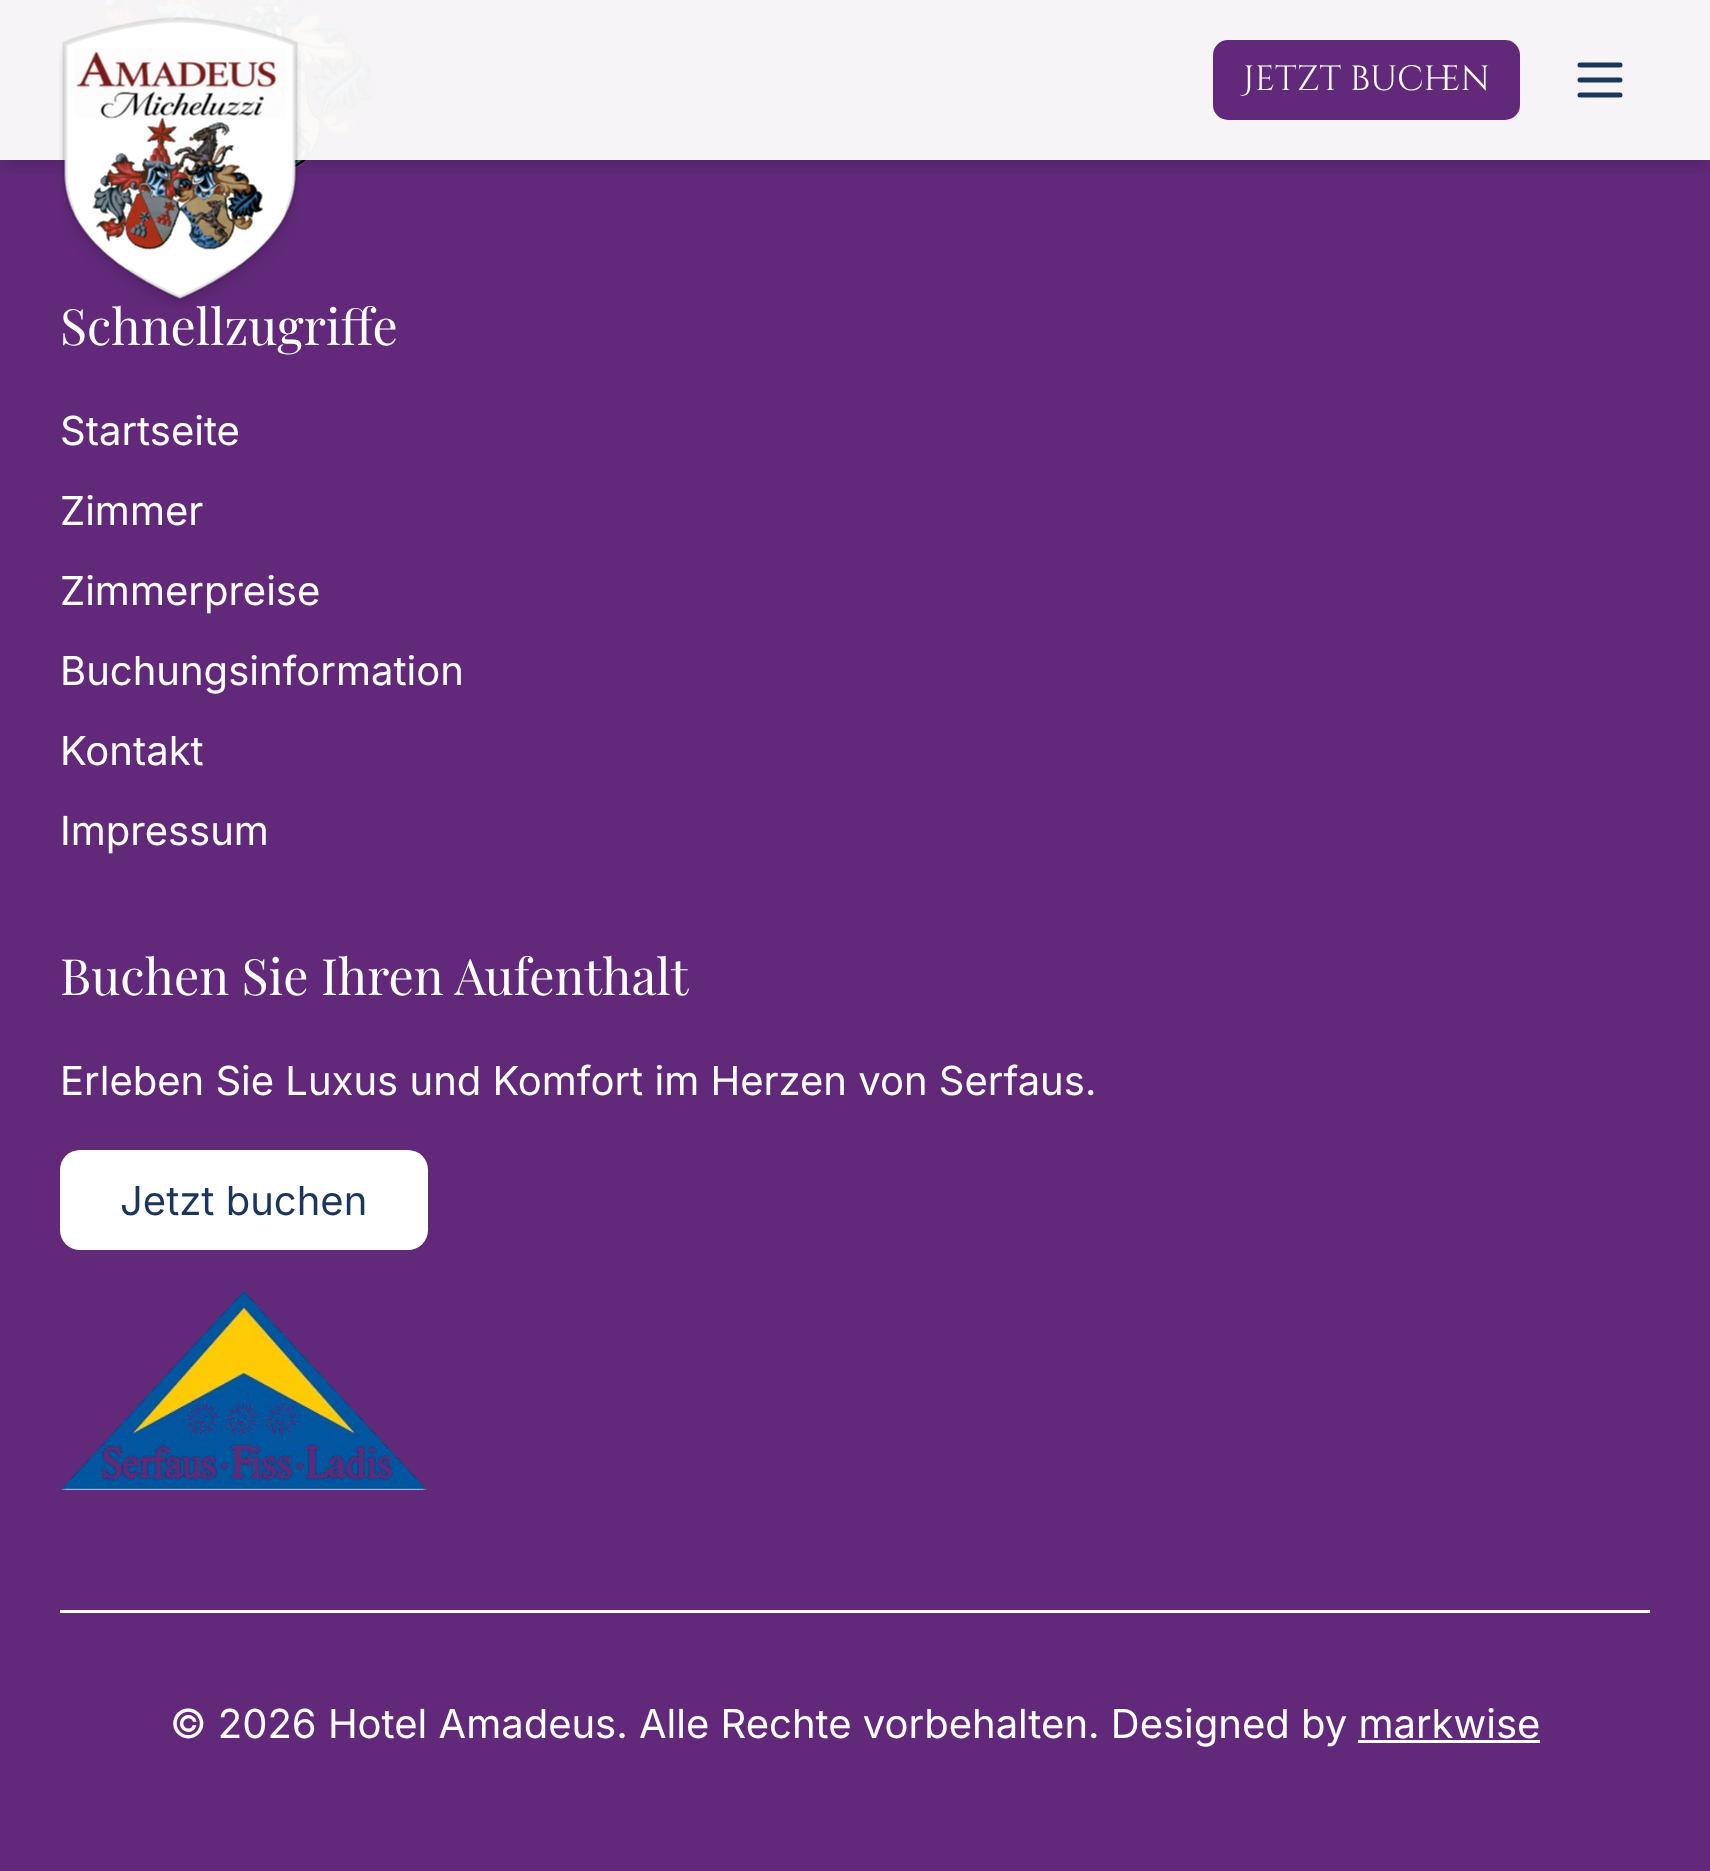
<!DOCTYPE html>
<meta charset="utf-8">
<style>body { margin: 0 } canvas { display: block }</style>
<canvas id="canvas" width="1710" height="1871"></canvas>
<script type="module">
  const canvas = document.getElementById("canvas");
  const g = canvas.getContext("2d");
  g.miterLimit = 4;
  g.fontKerning = "normal";
  function drawText(s, x, y, [font, color]) {
    g.font = font;
    g.fillStyle = color;
    g.fillText(s, x, y);
  }
  function fillBox(x, y, w, h, color) {
    g.fillStyle = color;
    g.fillRect(x, y, w, h);
  }
  function fillRounded(x, y, w, h, r, color) {
    g.fillStyle = color;
    g.beginPath();
    g.roundRect(x, y, w, h, r);
    g.fill();
  }
  async function drawPicture(src, x, y, w, h) {
    const img = new Image();
    img.src = src;
    await img.decode();
    g.drawImage(img, x, y, w, h);
  }

  const s1 = ["50px Playfair Display", "#FFFFFF"];
  const s2 = ["35px Cinzel Decorative", "#FFFFFF"];
  const s3 = ["40px Inter", "#FFFFFF"];
  const s4 = ["40px Inter", "#1A365D"];

  fillBox(0, 0, 1710, 1871, "#62297A");
  fillBox(0, 0, 1710, 160, "#F7F4F8");
  await drawPicture("pic2.png", 62, 0, 312, 169);
  g.save();
  g.beginPath();
  g.rect(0, 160, 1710, 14);
  g.clip();
  g.fillStyle = "rgba(0, 0, 0, 0.1)";
  g.filter = "blur(7.5px)";
  g.beginPath();
  g.rect(3, 13, 1705, 155);
  g.fill();
  g.filter = "none";
  g.restore();
  drawText("Schnellzugriffe", 60, 345, s1);
  await drawPicture("pic1.png", 59, 17, 242, 291);
  fillRounded(1213, 40, 307, 80, 15, "#62297A");
  drawText("Jetzt buchen", 1243, 90, s2);
  g.beginPath();
  g.moveTo(1580, 80);
  g.lineTo(1620, 80);
  g.moveTo(1580, 65);
  g.lineTo(1620, 65);
  g.moveTo(1580, 95);
  g.lineTo(1620, 95);
  g.strokeStyle = "#1A365D";
  g.lineWidth = 5;
  g.lineCap = "round";
  g.lineJoin = "round";
  g.stroke();
  drawText("Startseite", 60, 445, s3);
  drawText("Zimmer", 60, 525, s3);
  drawText("Zimmerpreise", 60, 605, s3);
  drawText("Buchungsinformation", 60, 685, s3);
  drawText("Kontakt", 60, 765, s3);
  drawText("Impressum", 60, 845, s3);
  drawText("Buchen Sie Ihren Aufenthalt", 60, 995, s1);
  drawText("Erleben Sie Luxus und Komfort im Herzen von Serfaus.", 60, 1095, s3);
  fillRounded(60, 1150, 368, 100, 20, "#FFFFFF");
  drawText("Jetzt buchen", 120, 1215, s4);
  await drawPicture("pic3.png", 61, 1291, 366, 199);
  fillBox(60, 1610, 1590, 3, "#FFFFFF");
  drawText("© 2026 Hotel Amadeus. Alle Rechte vorbehalten. Designed by markwise", 170, 1738, s3);
  fillBox(1358, 1740, 182, 3, "#FFFFFF");
</script>
